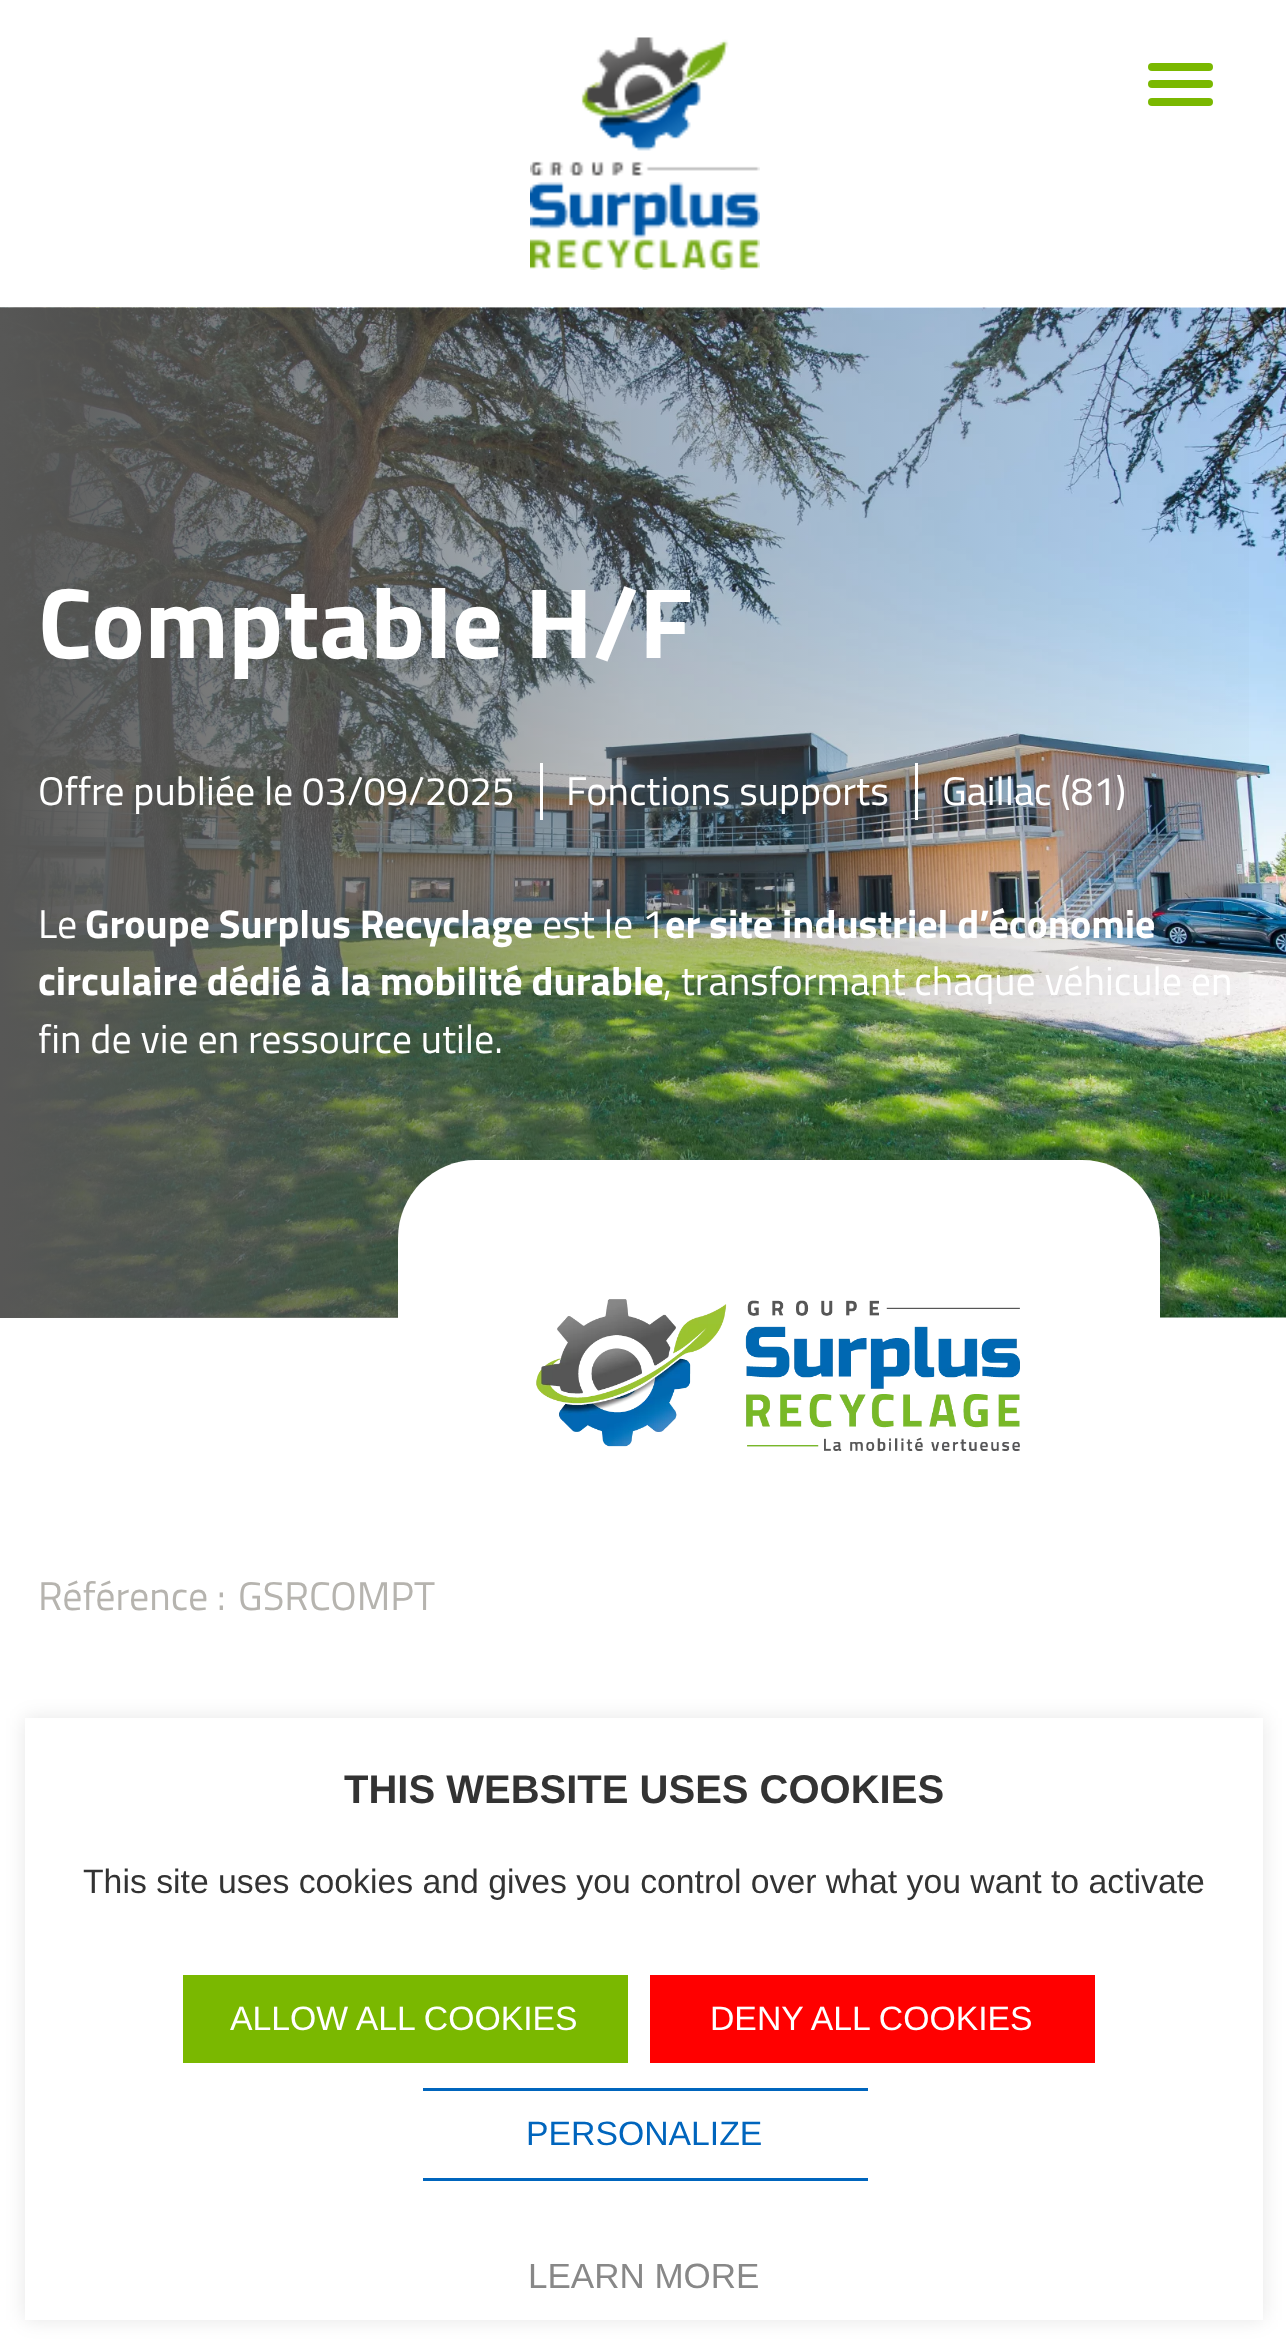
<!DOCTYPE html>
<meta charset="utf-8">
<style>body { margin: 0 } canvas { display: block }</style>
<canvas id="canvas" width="1286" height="2344"></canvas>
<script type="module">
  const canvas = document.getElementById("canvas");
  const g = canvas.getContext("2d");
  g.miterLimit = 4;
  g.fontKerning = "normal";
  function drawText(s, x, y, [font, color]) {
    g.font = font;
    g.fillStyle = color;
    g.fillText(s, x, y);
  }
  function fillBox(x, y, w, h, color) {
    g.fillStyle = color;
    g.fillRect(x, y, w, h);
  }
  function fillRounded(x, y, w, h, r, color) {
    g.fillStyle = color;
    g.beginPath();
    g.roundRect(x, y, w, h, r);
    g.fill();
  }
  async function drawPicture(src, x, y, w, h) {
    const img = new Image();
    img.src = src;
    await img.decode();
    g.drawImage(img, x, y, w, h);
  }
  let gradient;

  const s1 = ["bold 100px Titillium Web", "#FFFFFF"];
  const s2 = ["40px Titillium Web", "#FFFFFF"];
  const s3 = ["bold 40px Titillium Web", "#FFFFFF"];
  const s4 = ["40px Titillium Web", "#B6B4AF"];
  const s5 = ["bold 40px Liberation Sans", "#333333"];
  const s6 = ["33.75px Liberation Sans", "#333333"];
  const s7 = ["33.75px Liberation Sans", "#FFFFFF"];
  const s8 = ["33.75px Liberation Sans", "#0065BD"];
  const s9 = ["35px Liberation Sans", "#888888"];

  fillBox(0, 0, 1286, 2344, "#FFFFFF");
  await drawPicture("pic1.png", 530, 37, 230, 233);
  g.fillStyle = "#7AB800";
  g.beginPath();
  g.roundRect(1148, 63, 32, 8, [4, 0, 0, 4]);
  g.fill();
  g.beginPath();
  g.roundRect(1180, 63, 33, 8, [0, 4, 4, 0]);
  g.fill();
  g.beginPath();
  g.roundRect(1148, 80, 32, 8, [4, 0, 0, 4]);
  g.fill();
  g.beginPath();
  g.roundRect(1180, 80, 33, 8, [0, 4, 4, 0]);
  g.fill();
  g.beginPath();
  g.roundRect(1148, 98, 32, 8, [4, 0, 0, 4]);
  g.fill();
  g.beginPath();
  g.roundRect(1180, 98, 33, 8, [0, 4, 4, 0]);
  g.fill();
  await drawPicture("pic2.png", 0, 307, 1286, 1011);
  gradient = g.createLinearGradient(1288, 812, 0, 813);
  gradient.addColorStop(0, "rgba(87, 87, 86, 0)");
  gradient.addColorStop(0.5, "rgba(87, 87, 86, 0.35)");
  gradient.addColorStop(1, "#575756");
  g.fillStyle = gradient;
  g.fillRect(0, 308, 1249, 1010);
  drawText("Comptable H/F", 38, 658, s1);
  fillBox(540, 763, 3, 57, "#FFFFFF");
  drawText("Offre publiée le 03/09/2025", 38, 805, s2);
  fillBox(915, 763, 3, 57, "#FFFFFF");
  drawText("Fonctions supports", 566, 805, s2);
  drawText("Gaillac (81)", 942, 805, s2);
  drawText("Le", 38, 938, s2);
  drawText("Groupe Surplus Recyclage", 85, 938, s3);
  drawText("est le 1", 542, 938, s2);
  drawText("er site industriel d’économie", 665, 938, s3);
  drawText("circulaire dédié à la mobilité durable", 38, 995, s3);
  drawText(", transformant chaque véhicule en", 663, 995, s2);
  drawText("fin de vie en ressource utile.", 38, 1053, s2);
  drawText("GSRCOMPT", 238, 1610, s4);
  fillRounded(398, 1160, 762, 433, 78, "#FFFFFF");
  await drawPicture("pic3.png", 536, 1299, 484, 152);
  drawText("Référence :", 38, 1610, s4);
  g.fillStyle = "rgba(0, 0, 0, 0.1)";
  g.filter = "blur(10px)";
  g.beginPath();
  g.rect(25, 1718, 1238, 602);
  g.fill();
  g.filter = "none";
  fillBox(25, 1718, 1238, 602, "#FFFFFF");
  drawText("THIS WEBSITE USES COOKIES", 344, 1803, s5);
  drawText("This site uses cookies and gives you control over what you want to activate", 83, 1893, s6);
  fillBox(183, 1975, 445, 88, "#7AB800");
  drawText("ALLOW ALL COOKIES", 230, 2030, s7);
  fillBox(650, 1975, 445, 88, "#FF0000");
  drawText("DENY ALL COOKIES", 710, 2030, s7);
  fillBox(423, 2088, 445, 3, "#0065BD");
  fillBox(423, 2178, 445, 3, "#0065BD");
  drawText("PERSONALIZE", 526, 2145, s8);
  drawText("LEARN MORE", 528, 2288, s9);
</script>
